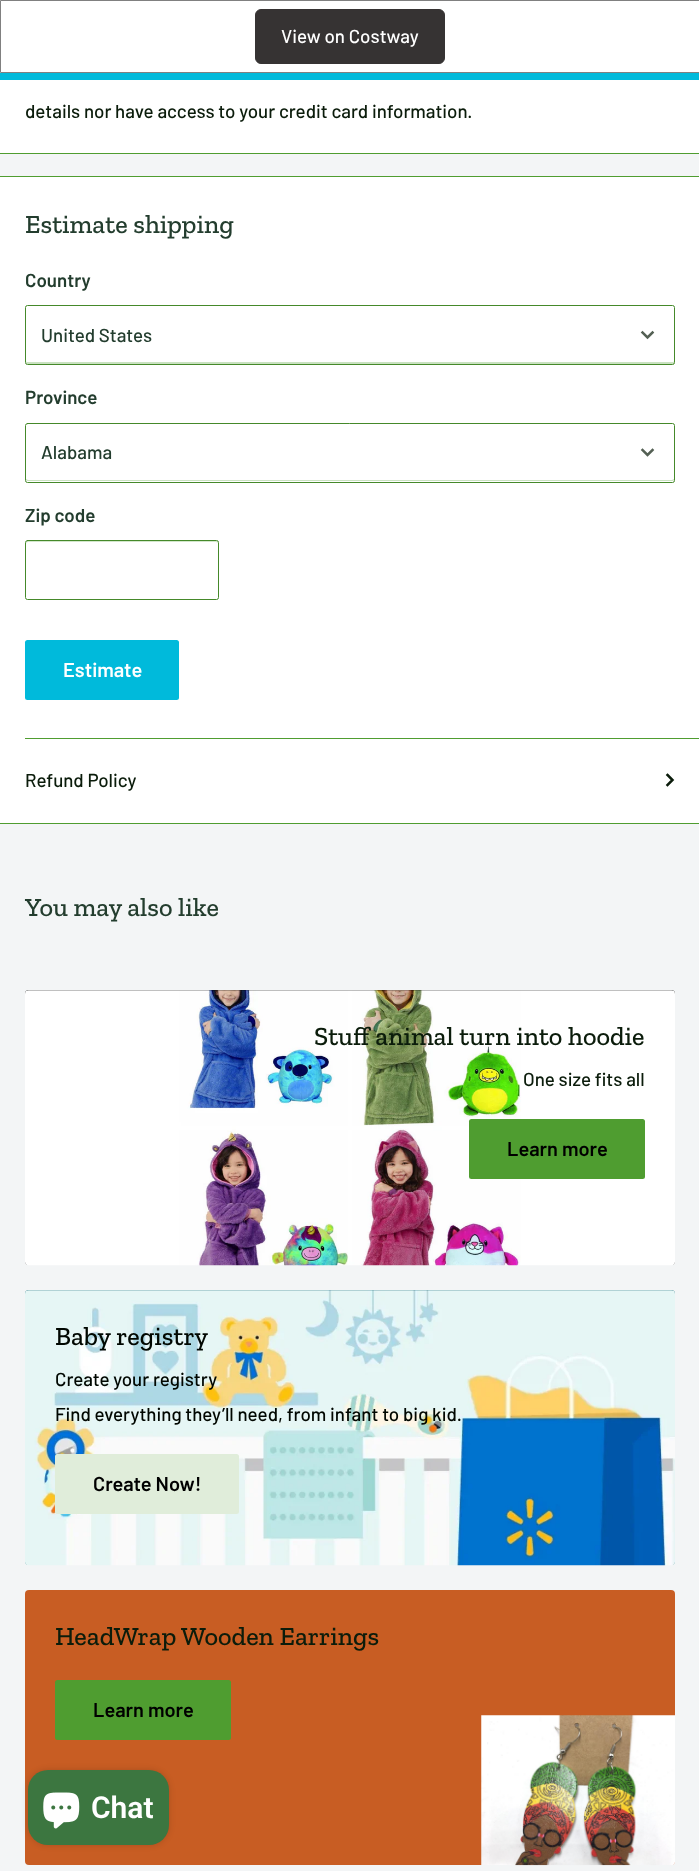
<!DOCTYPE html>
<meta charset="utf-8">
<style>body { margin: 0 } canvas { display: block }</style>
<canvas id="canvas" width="699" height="1871"></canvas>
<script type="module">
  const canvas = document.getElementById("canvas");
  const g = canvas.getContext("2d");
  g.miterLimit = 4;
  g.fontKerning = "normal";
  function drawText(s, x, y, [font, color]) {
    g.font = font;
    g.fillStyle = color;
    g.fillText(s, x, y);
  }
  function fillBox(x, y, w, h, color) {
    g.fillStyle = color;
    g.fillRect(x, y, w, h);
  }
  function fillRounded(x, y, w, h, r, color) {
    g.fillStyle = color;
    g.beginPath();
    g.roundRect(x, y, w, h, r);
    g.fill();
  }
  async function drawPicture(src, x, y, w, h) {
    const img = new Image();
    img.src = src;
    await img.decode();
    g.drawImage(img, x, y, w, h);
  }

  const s1 = ["500 18.75px Barlow", "#FFFFFF"];
  const s2 = ["500 18.75px Barlow", "#0B1C0B"];
  const s3 = ["500 26.25px Zilla Slab", "#233D2E"];
  const s4 = ["600 18.75px Barlow", "#233D2E"];
  const s5 = ["500 18.75px Barlow", "#233D2E"];
  const s6 = ["600 20px Barlow", "#FFFFFF"];
  const s7 = ["500 26.25px Zilla Slab", "#0B1C0B"];
  const s8 = ["600 20px Barlow", "#000000"];
  const s9 = ["500 26.25px Zilla Slab", "#010701"];
  const s10 = ["500 18.75px Barlow", "#010701"];
  const s11 = ["600 30px Roboto", "#FFFFFF"];

  fillBox(0, 0, 699, 1871, "#F3F5F6");
  g.fillStyle = "#FFFFFF";
  g.beginPath();
  g.rect(0.5, 0.5, 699, 72);
  g.fill();
  g.strokeStyle = "#808080";
  g.stroke();
  g.fillStyle = "#363333";
  g.beginPath();
  g.roundRect(255.5, 9.5, 189, 54, 5.5);
  g.fill();
  g.strokeStyle = "#363333";
  g.stroke();
  drawText("View on Costway", 281, 43, s1);
  fillBox(0, 73, 699, 7, "#00BADB");
  fillBox(0, 80, 699, 73, "#FFFFFF");
  fillBox(0, 153, 699, 1, "#4F9D30");
  drawText("details nor have access to your credit card information.", 25, 118, s2);
  fillBox(0, 177, 699, 646, "#FFFFFF");
  fillBox(0, 176, 699, 1, "#4F9D30");
  fillBox(0, 823, 699, 1, "#4F9D30");
  drawText("Estimate shipping", 25, 233, s3);
  drawText("Country", 25, 287, s4);
  g.fillStyle = "#CAE2C1";
  g.beginPath();
  g.moveTo(26, 361);
  g.bezierCurveTo(26, 362, 26, 364, 27, 364);
  g.lineTo(673, 364);
  g.lineTo(674, 364);
  g.lineTo(674, 361);
  g.bezierCurveTo(674, 362, 673, 362, 672, 362);
  g.lineTo(28, 362);
  g.bezierCurveTo(27, 362, 26, 362, 26, 361);
  g.closePath();
  g.fill();
  g.beginPath();
  g.roundRect(25.5, 305.5, 649, 59, 2);
  g.strokeStyle = "#45892A";
  g.stroke();
  drawText("United States", 41, 342, s5);
  g.beginPath();
  g.moveTo(652.5, 332.5);
  g.lineTo(647.5, 337.5);
  g.lineTo(642.5, 332.5);
  g.strokeStyle = "#546054";
  g.lineWidth = 2.5;
  g.lineCap = "square";
  g.stroke();
  drawText("Province", 25, 404, s4);
  g.fillStyle = "#CAE2C1";
  g.beginPath();
  g.moveTo(26, 479);
  g.bezierCurveTo(26, 480, 26, 481, 27, 481);
  g.lineTo(673, 481);
  g.bezierCurveTo(674, 481, 674, 480, 674, 479);
  g.lineTo(672, 480);
  g.lineTo(28, 480);
  g.closePath();
  g.fill();
  g.beginPath();
  g.roundRect(25.5, 423.5, 649, 59, 2);
  g.strokeStyle = "#45892A";
  g.lineWidth = 1;
  g.stroke();
  drawText("Alabama", 41, 459, s5);
  g.beginPath();
  g.moveTo(652.5, 450);
  g.lineTo(647.5, 455);
  g.lineTo(642.5, 450);
  g.strokeStyle = "#546054";
  g.lineWidth = 2.5;
  g.stroke();
  drawText("Zip code", 25, 522, s4);
  g.fillStyle = "#D3E7CB";
  g.beginPath();
  g.moveTo(28, 542);
  g.lineTo(216, 542);
  g.lineTo(218, 543);
  g.lineTo(218, 544);
  g.bezierCurveTo(218, 543, 218, 541, 217, 541);
  g.lineTo(27, 541);
  g.bezierCurveTo(26, 541, 26, 543, 26, 544);
  g.bezierCurveTo(26, 543, 27, 542, 28, 542);
  g.closePath();
  g.fill();
  g.beginPath();
  g.roundRect(25.5, 540.5, 193, 59, 2);
  g.strokeStyle = "#45892A";
  g.lineWidth = 1;
  g.stroke();
  fillRounded(25, 640, 154, 60, 2.5, "#00BADB");
  drawText("Estimate", 63, 677, s6);
  fillBox(25, 738, 674, 1, "#4F9D30");
  drawText("Refund Policy", 25, 787, s2);
  g.beginPath();
  g.moveTo(667.5, 775);
  g.lineTo(672.5, 780);
  g.lineTo(667.5, 785);
  g.strokeStyle = "#0B1C0B";
  g.lineWidth = 2.5;
  g.stroke();
  drawText("You may also like", 25, 916, s3);
  fillRounded(25, 990, 650, 275, 4, "#000000");
  await drawPicture("pic1.png", 25, 990, 650, 276);
  drawText("Stuff animal turn into hoodie", 314, 1045, s7);
  drawText("One size fits all", 523, 1086, s2);
  fillRounded(469, 1119, 176, 60, 2.5, "#4F9D30");
  drawText("Learn more", 507, 1156, s8);
  fillRounded(25, 1290, 650, 275, 4, "#106474");
  await drawPicture("pic2.png", 25, 1290, 650, 276);
  drawText("Baby registry", 55, 1345, s9);
  drawText("Create your registry", 55, 1386, s10);
  drawText("Find everything they’ll need, from infant to big kid.", 55, 1421, s10);
  fillRounded(55, 1454, 184, 60, 2.5, "#E0EDDA");
  drawText("Create Now!", 93, 1491, s8);
  fillRounded(25, 1590, 650, 275, 4, "#C85D23");
  drawText("HeadWrap Wooden Earrings", 55, 1645, s7);
  fillRounded(55, 1680, 176, 60, 2.5, "#4F9D30");
  drawText("Learn more", 93, 1717, s8);
  await drawPicture("pic3.png", 481, 1715, 194, 151);
  g.fillStyle = "rgba(0, 0, 0, 0.15)";
  g.filter = "blur(3px)";
  g.beginPath();
  g.roundRect(28, 1770, 141, 75, 20);
  g.fill();
  g.filter = "none";
  fillRounded(28, 1770, 141, 75, 20, "#3C7640");
  await drawPicture("pic4.png", 43, 1792, 37, 37);
  drawText("Chat", 91, 1818, s11);
</script>
